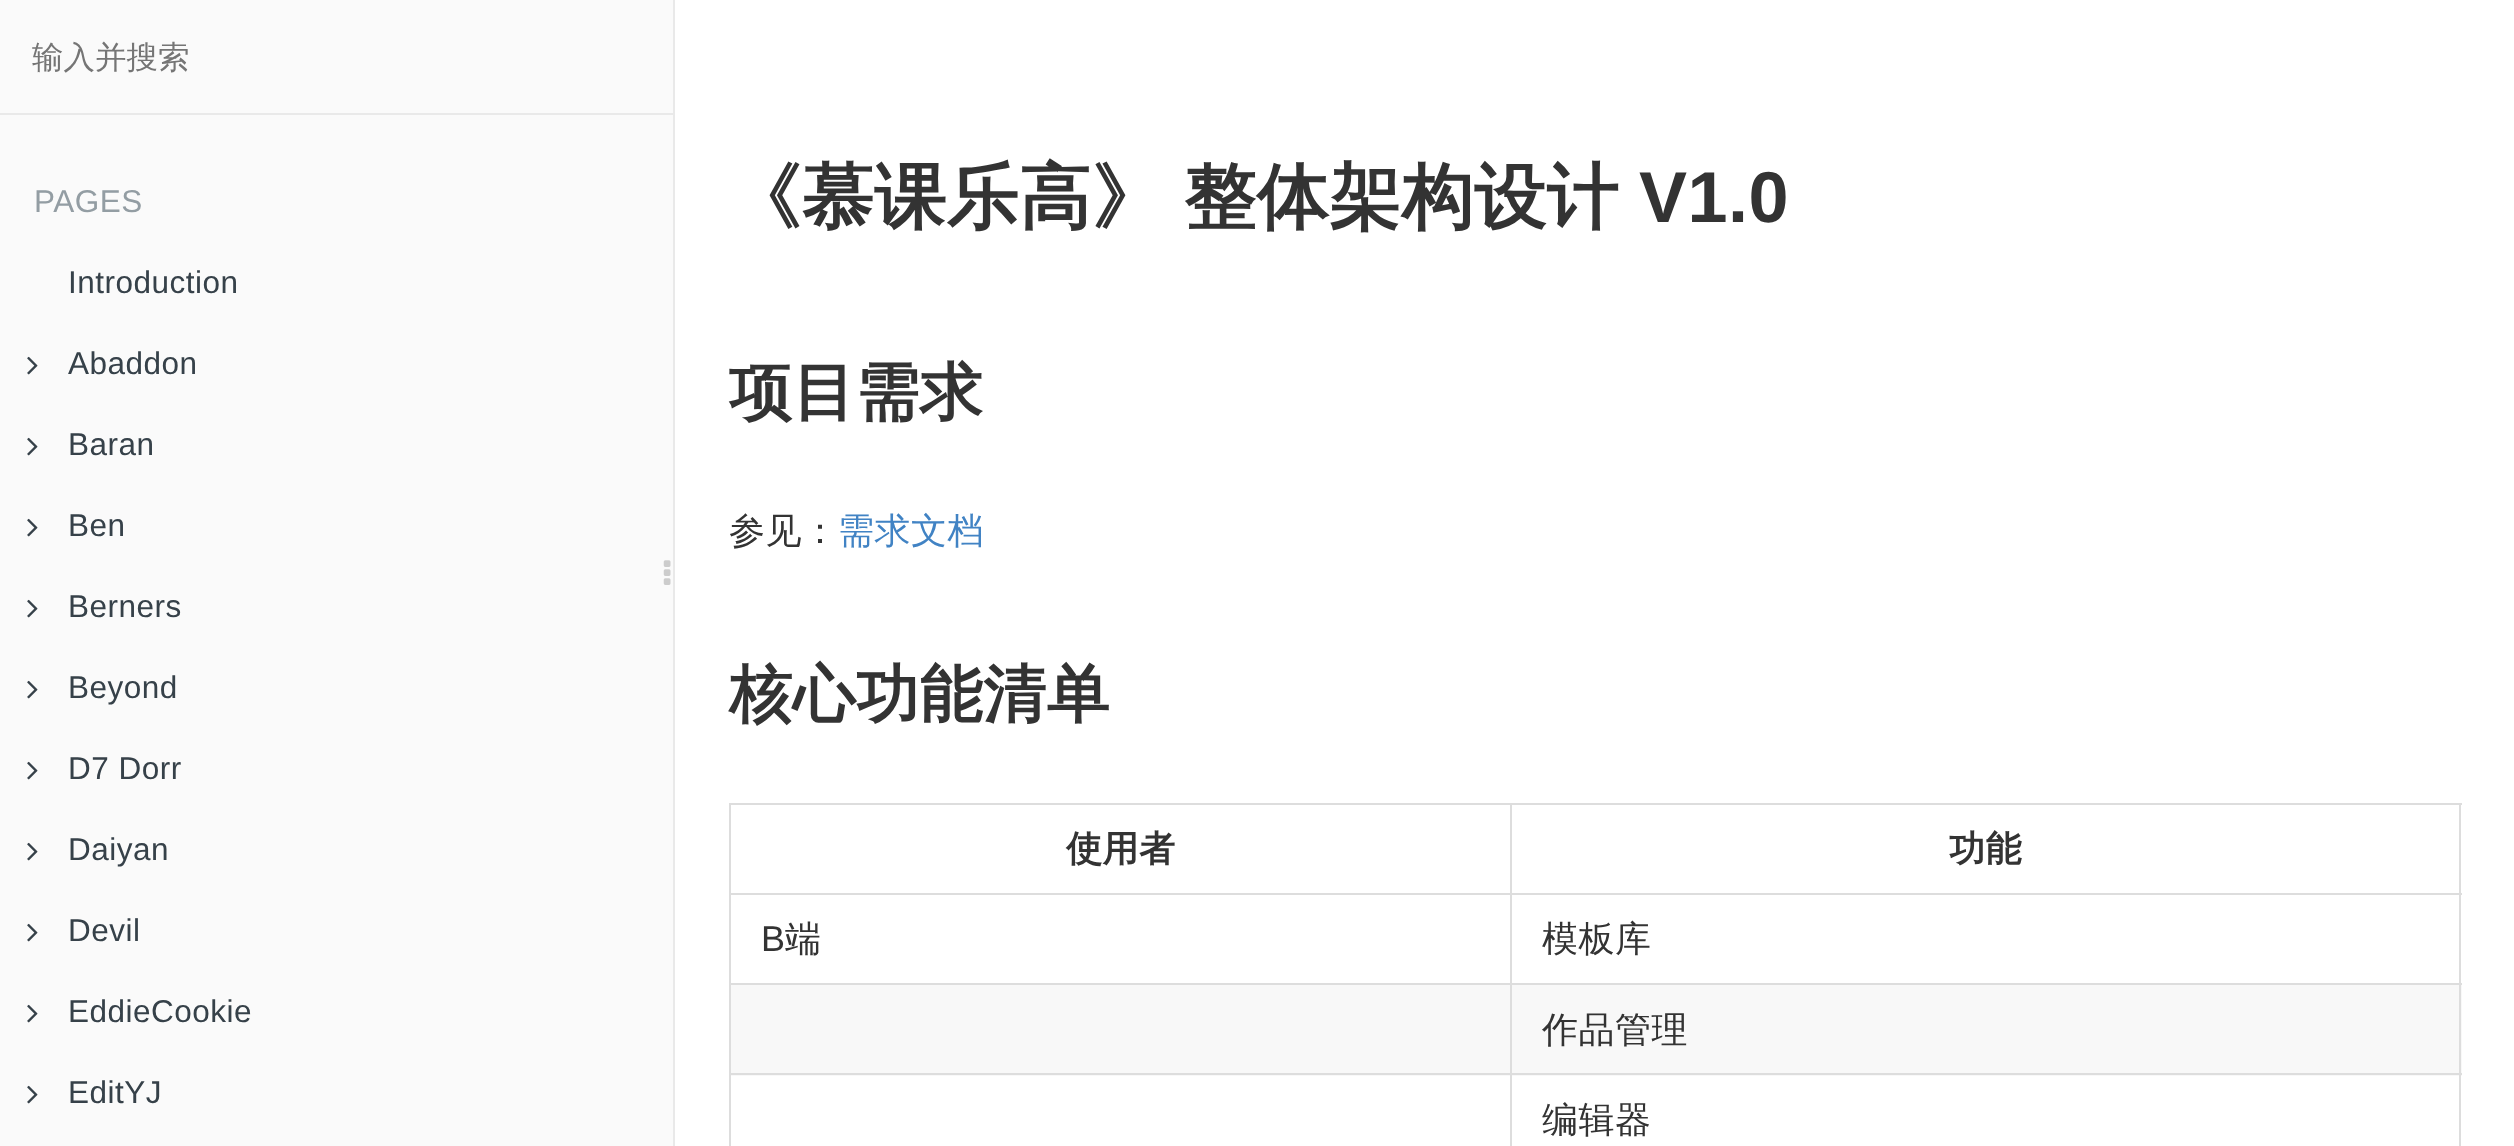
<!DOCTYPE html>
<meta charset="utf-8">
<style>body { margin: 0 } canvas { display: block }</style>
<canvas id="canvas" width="2514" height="1146"></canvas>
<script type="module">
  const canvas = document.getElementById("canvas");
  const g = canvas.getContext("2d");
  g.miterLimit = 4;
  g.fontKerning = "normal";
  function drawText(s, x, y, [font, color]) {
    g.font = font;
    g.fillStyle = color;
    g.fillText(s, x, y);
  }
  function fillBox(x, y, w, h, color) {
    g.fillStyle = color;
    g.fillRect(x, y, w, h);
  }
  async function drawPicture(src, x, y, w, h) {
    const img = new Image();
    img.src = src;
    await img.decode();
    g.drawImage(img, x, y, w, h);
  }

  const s1 = ["500 31.5px WenQuanYi Zen Hei", "#757575"];
  const s2 = ["31.5px Liberation Sans", "#939DA3"];
  const s3 = ["31.5px Liberation Sans", "#364149"];
  const s4 = ["bold 72px WenQuanYi Zen Hei", "#333333"];
  const s5 = ["bold 72px Liberation Sans", "#333333"];
  const s6 = ["bold 63px WenQuanYi Zen Hei", "#333333"];
  const s7 = ["500 36px WenQuanYi Zen Hei", "#333333"];
  const s8 = ["500 36px WenQuanYi Zen Hei", "#4183C4"];
  const s9 = ["bold 36px WenQuanYi Zen Hei", "#333333"];
  const s10 = ["36px Liberation Sans", "#333333"];

  fillBox(0, 0, 2514, 1146, "#FFFFFF");
  fillBox(0, 0, 673, 1146, "#FAFAFA");
  fillBox(673, 0, 2, 1146, "#E9E9E9");
  fillBox(0, 113, 673, 2, "#E9E9E9");
  g.save();
  g.beginPath();
  g.rect(32, 38, 609, 41);
  g.clip();
  drawText("输入并搜索", 32, 68, s1);
  g.restore();
  g.letterSpacing = "0.5px";
  drawText("PAGES", 34, 212, s2);
  drawText("Introduction", 68, 293, s3);
  await drawPicture("pic1.png", 27, 356, 11, 19);
  drawText("Abaddon", 68, 374, s3);
  await drawPicture("pic1.png", 27, 437, 11, 19);
  drawText("Baran", 68, 455, s3);
  await drawPicture("pic1.png", 27, 518, 11, 19);
  drawText("Ben", 68, 536, s3);
  await drawPicture("pic1.png", 27, 599, 11, 19);
  drawText("Berners", 68, 617, s3);
  await drawPicture("pic1.png", 27, 680, 11, 19);
  drawText("Beyond", 68, 698, s3);
  await drawPicture("pic1.png", 27, 761, 11, 19);
  drawText("D7 Dorr", 68, 779, s3);
  await drawPicture("pic1.png", 27, 842, 11, 19);
  drawText("Daiyan", 68, 860, s3);
  await drawPicture("pic1.png", 27, 923, 11, 19);
  drawText("Devil", 68, 941, s3);
  await drawPicture("pic1.png", 27, 1004, 11, 19);
  drawText("EddieCookie", 68, 1022, s3);
  await drawPicture("pic1.png", 27, 1085, 11, 19);
  drawText("EditYJ", 68, 1103, s3);
  await drawPicture("pic2.png", 663, 560, 8, 25);
  drawText("《慕课乐高》", 729, 222, s4);
  drawText("整体架构设计", 1184, 222, s4);
  drawText("V1.0", 1639, 222, s5);
  drawText("项目需求", 729, 414, s6);
  drawText("参见：", 729, 543, s7);
  drawText("需求文档", 838, 543, s8);
  drawText("核心功能清单", 729, 716, s6);
  fillBox(1510, 803, 952, 2, "#DDDDDD");
  fillBox(1510, 893, 952, 2, "#DDDDDD");
  fillBox(731, 985, 1731, 91, "#F8F8F8");
  fillBox(1510, 983, 952, 2, "#DDDDDD");
  fillBox(1510, 1073, 952, 2, "#DDDDDD");
  fillBox(1510, 1073, 2, 73, "#DDDDDD");
  fillBox(729, 1073, 783, 2, "#DDDDDD");
  fillBox(1510, 983, 2, 93, "#DDDDDD");
  fillBox(729, 983, 783, 2, "#DDDDDD");
  fillBox(1510, 893, 2, 93, "#DDDDDD");
  fillBox(729, 893, 783, 2, "#DDDDDD");
  fillBox(1510, 803, 2, 93, "#DDDDDD");
  fillBox(729, 803, 783, 2, "#DDDDDD");
  fillBox(729, 1073, 2, 73, "#DDDDDD");
  fillBox(729, 983, 2, 93, "#DDDDDD");
  fillBox(729, 893, 2, 93, "#DDDDDD");
  fillBox(729, 803, 2, 93, "#DDDDDD");
  drawText("使用者", 1066, 861, s9);
  fillBox(2459, 1073, 2, 73, "#DDDDDD");
  fillBox(2459, 983, 2, 93, "#DDDDDD");
  fillBox(2459, 893, 2, 93, "#DDDDDD");
  fillBox(2459, 803, 2, 93, "#DDDDDD");
  drawText("功能", 1949, 861, s9);
  drawText("B", 761, 951, s10);
  drawText("端", 785, 951, s7);
  drawText("模板库", 1542, 951, s7);
  drawText("作品管理", 1542, 1042, s7);
  drawText("编辑器", 1542, 1132, s7);
</script>
